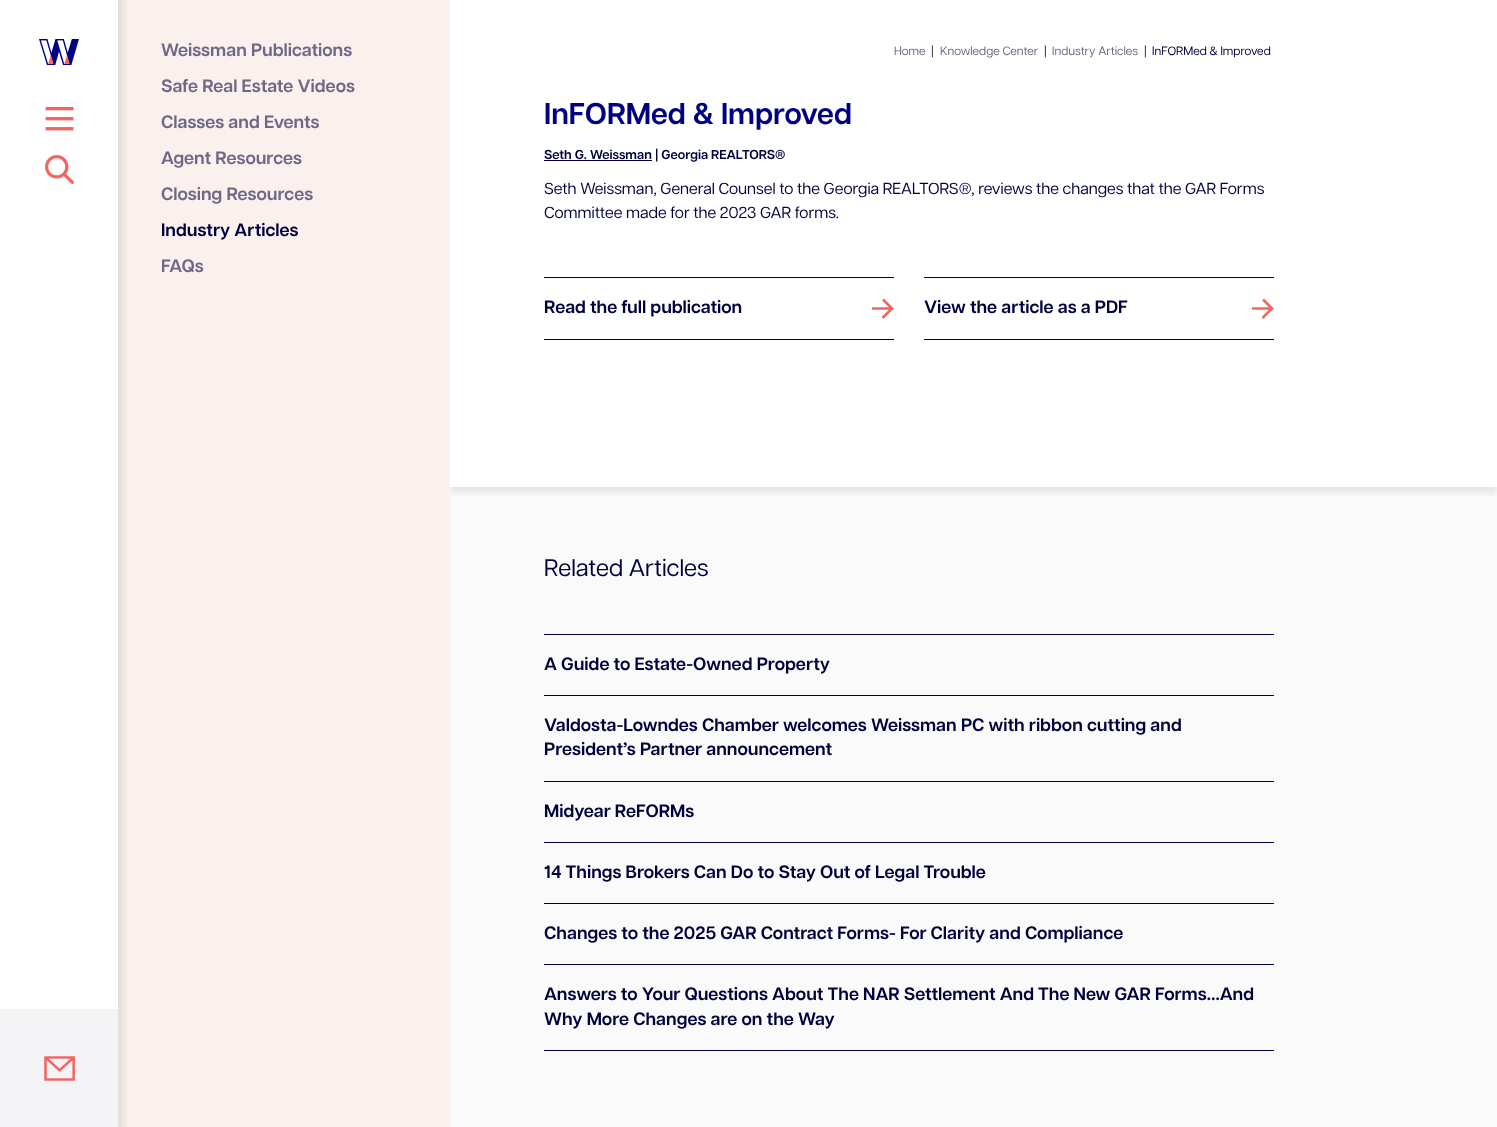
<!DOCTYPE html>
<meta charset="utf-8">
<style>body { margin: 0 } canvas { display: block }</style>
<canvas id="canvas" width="1497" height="1127"></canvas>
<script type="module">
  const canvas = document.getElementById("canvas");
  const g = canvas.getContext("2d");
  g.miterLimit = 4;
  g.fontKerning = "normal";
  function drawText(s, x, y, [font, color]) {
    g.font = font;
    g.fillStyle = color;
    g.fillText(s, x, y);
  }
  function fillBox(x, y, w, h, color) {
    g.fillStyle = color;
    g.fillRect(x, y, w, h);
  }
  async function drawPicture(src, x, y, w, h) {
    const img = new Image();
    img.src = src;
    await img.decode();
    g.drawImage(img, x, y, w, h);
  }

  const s1 = ["600 18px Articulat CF", "#6E6886"];
  const s2 = ["600 18px Articulat CF", "#00003D"];
  const s3 = ["12px Articulat CF", "#6E6886"];
  const s4 = ["12px Articulat CF", "#00003D"];
  const s5 = ["600 30px Articulat CF", "#000084"];
  const s6 = ["600 13px Articulat CF", "#00003D"];
  const s7 = ["16px Articulat CF", "#00003D"];
  const s8 = ["24px Articulat CF", "#00003D"];

  fillBox(0, 0, 1497, 1127, "#FFFFFF");
  fillBox(118, 0, 332, 1127, "#FAF1EF");
  g.save();
  g.beginPath();
  g.rect(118, 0, 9, 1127);
  g.clip();
  g.fillStyle = "rgba(80, 79, 79, 0.12)";
  g.filter = "blur(3px)";
  g.beginPath();
  g.rect(-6, -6, 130, 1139);
  g.fill();
  g.filter = "none";
  g.restore();
  await drawPicture("pic1.png", 39, 39, 40, 26);
  await drawPicture("pic2.png", 45, 107, 29, 24);
  await drawPicture("pic3.png", 45, 155, 29, 29);
  fillBox(0, 1009, 118, 118, "#F4F4F7");
  await drawPicture("pic4.png", 44, 1056, 31, 25);
  drawText("Weissman Publications", 161, 56, s1);
  drawText("Safe Real Estate Videos", 161, 92, s1);
  drawText("Classes and Events", 161, 128, s1);
  drawText("Agent Resources", 161, 164, s1);
  drawText("Closing Resources", 161, 200, s1);
  drawText("Industry Articles", 161, 236, s2);
  drawText("FAQs", 161, 272, s1);
  drawText("Home", 894, 55, s3);
  drawText("|", 931, 55, s4);
  drawText("Knowledge Center", 940, 55, s3);
  drawText("|", 1044, 55, s4);
  drawText("Industry Articles", 1052, 55, s3);
  drawText("|", 1144, 55, s4);
  drawText("InFORMed & Improved", 1152, 55, s4);
  fillBox(450, 487, 1047, 640, "#FAFAFB");
  g.save();
  g.beginPath();
  g.rect(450, 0, 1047, 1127);
  g.clip();
  g.beginPath();
  g.rect(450, 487, 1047, 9);
  g.clip();
  g.fillStyle = "rgba(80, 79, 79, 0.12)";
  g.filter = "blur(3px)";
  g.beginPath();
  g.rect(450, 67, 1047, 426);
  g.fill();
  g.filter = "none";
  g.restore();
  drawText("InFORMed & Improved", 544, 124, s5);
  fillBox(544, 160, 108, 1, "#00003D");
  drawText("Seth G. Weissman | Georgia REALTORS®", 544, 159, s6);
  drawText("Seth Weissman, General Counsel to the Georgia REALTORS®, reviews the changes that the GAR Forms", 544, 194, s7);
  drawText("Committee made for the 2023 GAR forms.", 544, 218, s7);
  fillBox(544, 277, 350, 1, "#00003D");
  fillBox(544, 339, 350, 1, "#00003D");
  drawText("Read the full publication", 544, 313, s2);
  g.beginPath();
  g.moveTo(882.5, 318);
  g.lineTo(892.5, 308);
  g.moveTo(883, 299.5);
  g.lineTo(893, 309.5);
  g.moveTo(872, 308.5);
  g.lineTo(892, 308.5);
  g.strokeStyle = "#F26662";
  g.lineWidth = 2.5;
  g.stroke();
  fillBox(924, 277, 350, 1, "#00003D");
  fillBox(924, 339, 350, 1, "#00003D");
  drawText("View the article as a PDF", 924, 313, s2);
  g.beginPath();
  g.moveTo(1262.5, 318);
  g.lineTo(1272.5, 308);
  g.moveTo(1263, 299.5);
  g.lineTo(1273, 309.5);
  g.moveTo(1252, 308.5);
  g.lineTo(1272, 308.5);
  g.stroke();
  drawText("Related Articles", 544, 576, s8);
  fillBox(544, 634, 730, 1, "#00003D");
  drawText("A Guide to Estate-Owned Property", 544, 670, s2);
  fillBox(544, 695, 730, 1, "#00003D");
  drawText("Valdosta-Lowndes Chamber welcomes Weissman PC with ribbon cutting and", 544, 731, s2);
  drawText("President’s Partner announcement", 544, 755, s2);
  fillBox(544, 781, 730, 1, "#00003D");
  drawText("Midyear ReFORMs", 544, 817, s2);
  fillBox(544, 842, 730, 1, "#00003D");
  drawText("14 Things Brokers Can Do to Stay Out of Legal Trouble", 544, 878, s2);
  fillBox(544, 903, 730, 1, "#00003D");
  drawText("Changes to the 2025 GAR Contract Forms- For Clarity and Compliance", 544, 939, s2);
  fillBox(544, 964, 730, 1, "#00003D");
  fillBox(544, 1050, 730, 1, "#00003D");
  drawText("Answers to Your Questions About The NAR Settlement And The New GAR Forms…And", 544, 1000, s2);
  drawText("Why More Changes are on the Way", 544, 1025, s2);
</script>
